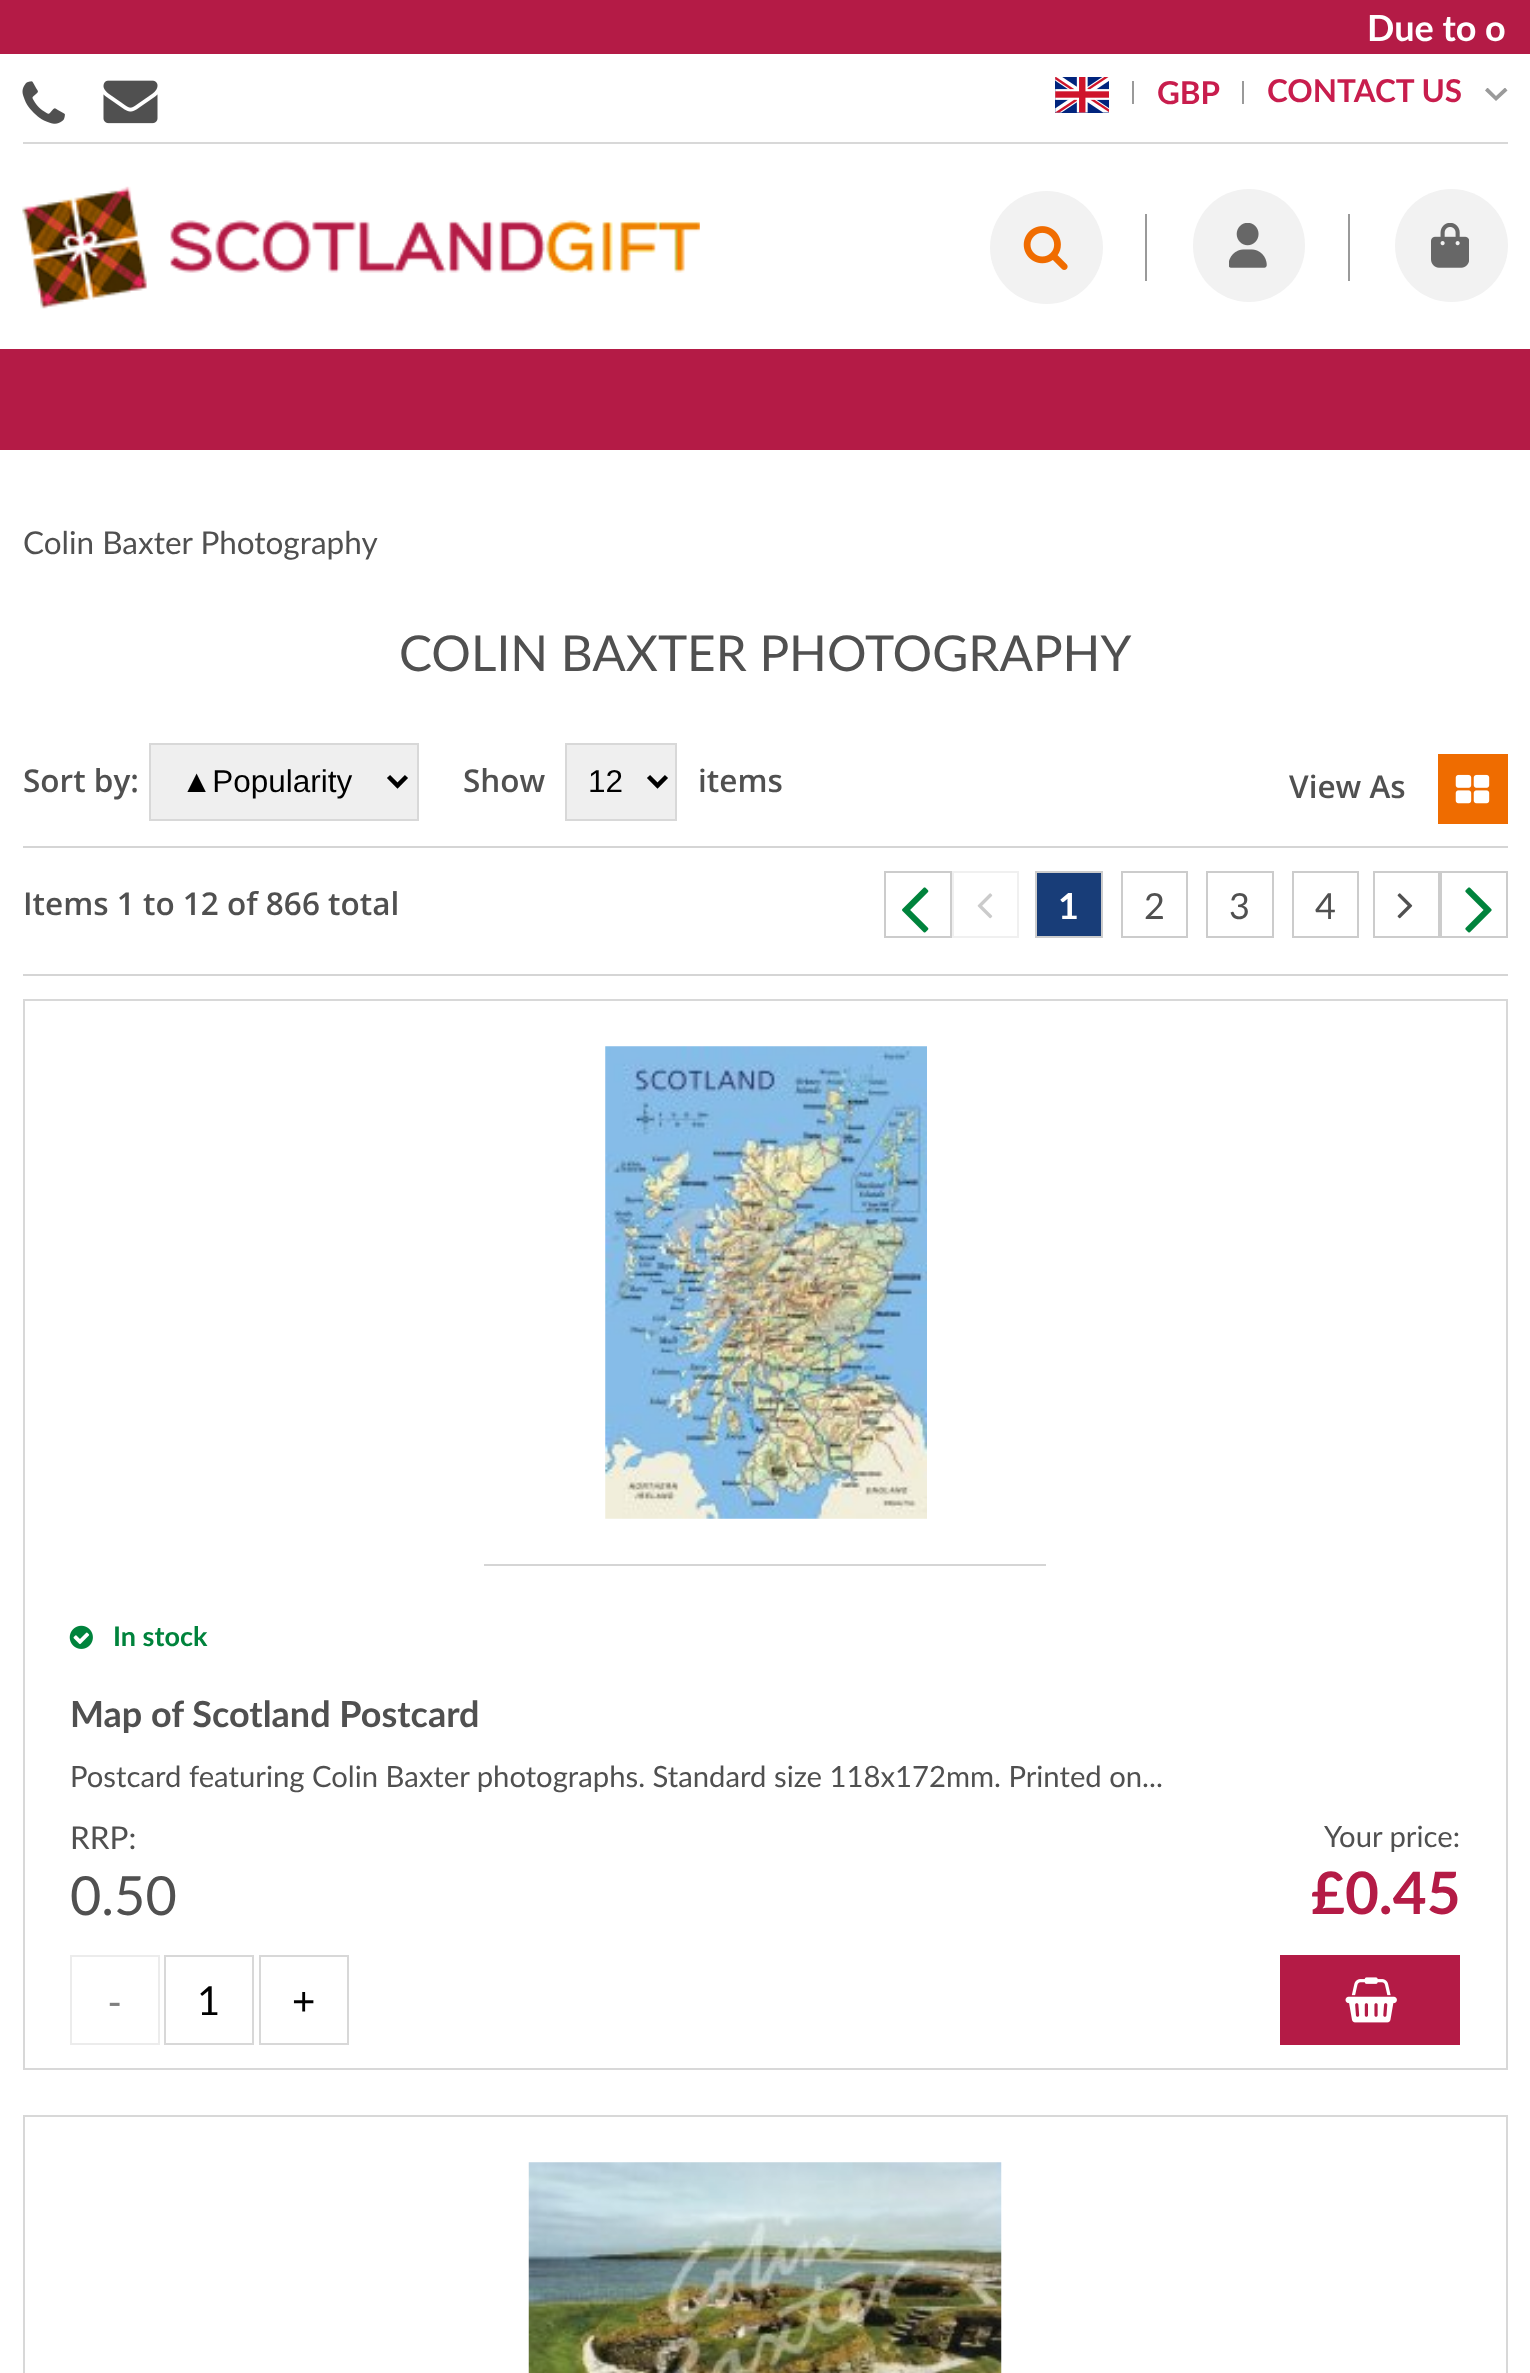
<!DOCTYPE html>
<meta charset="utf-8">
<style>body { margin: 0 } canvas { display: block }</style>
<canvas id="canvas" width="1530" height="2373"></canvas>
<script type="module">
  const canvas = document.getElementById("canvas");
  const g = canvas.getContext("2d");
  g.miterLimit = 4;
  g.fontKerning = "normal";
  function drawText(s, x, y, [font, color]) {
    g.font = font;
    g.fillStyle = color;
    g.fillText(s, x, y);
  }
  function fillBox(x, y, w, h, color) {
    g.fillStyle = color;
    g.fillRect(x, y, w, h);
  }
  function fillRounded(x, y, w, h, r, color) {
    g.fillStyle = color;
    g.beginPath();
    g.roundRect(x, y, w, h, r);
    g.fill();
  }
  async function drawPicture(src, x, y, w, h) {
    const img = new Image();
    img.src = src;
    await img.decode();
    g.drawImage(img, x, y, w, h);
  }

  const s1 = ["bold 36px Lato", "#FFFFFF"];
  const s2 = ["bold 31.5px Lato", "#C81D4D"];
  const s3 = ["31.5px Lato", "#505050"];
  const s4 = ["49.5px Lato", "#505050"];
  const s5 = ["600 31.5px Open Sans", "#505050"];
  const s6 = ["31.5px Liberation Sans", "#000000"];
  const s7 = ["36px Lato", "#505050"];
  const s8 = ["bold 27px Lato", "#00833C"];
  const s9 = ["bold 36px Lato", "#505050"];
  const s10 = ["29.25px Lato", "#505050"];
  const s11 = ["54px Lato", "#505050"];
  const s12 = ["bold 58.5px Lato", "#B41B46"];
  const s13 = ["40px Liberation Sans", "#808080"];
  const s14 = ["40px Lato", "#000000"];
  const s15 = ["40px Liberation Sans", "#000000"];

  fillBox(0, 0, 1530, 2373, "#FFFFFF");
  fillBox(0, 0, 1530, 54, "#B41B46");
  drawText("Due to o", 1367, 41, s1);
  fillBox(23, 142, 1485, 2, "#D8D8D8");
  await drawPicture("pic1.png", 22, 81, 43, 43);
  await drawPicture("pic2.png", 103, 80, 55, 44);
  await drawPicture("pic3.png", 1055, 77, 54, 36);
  fillBox(1242, 81, 2, 23, "#9A9A9A");
  fillBox(1132, 81, 2, 23, "#9A9A9A");
  drawText("GBP", 1157, 104, s2);
  drawText("CONTACT US", 1267, 102, s2);
  g.save();
  g.beginPath();
  g.rect(1485, 88, 23, 13);
  g.clip();
  g.fillStyle = "#9A9A9A";
  g.beginPath();
  g.moveTo(1496, 96);
  g.lineTo(1505, 87.5);
  g.lineTo(1507.5, 90.5);
  g.lineTo(1496, 101);
  g.lineTo(1485, 90.5);
  g.lineTo(1487.5, 87.5);
  g.closePath();
  g.fill();
  g.restore();
  await drawPicture("pic4.png", 22, 186, 678, 123);
  g.fillStyle = "#F2F2F2";
  g.beginPath();
  g.arc(1046.5, 247.5, 56.5, 0, Math.PI * 2);
  g.fill();
  await drawPicture("pic5.png", 1023, 226, 45, 44);
  fillBox(1145, 214, 2, 67, "#9A9A9A");
  fillRounded(1193, 189, 112, 113, 56, "#F2F2F2");
  await drawPicture("pic6.png", 1229, 223, 38, 45);
  fillBox(1348, 214, 2, 67, "#9A9A9A");
  g.fillStyle = "#F2F2F2";
  g.beginPath();
  g.arc(1451.5, 245.5, 56.5, 0, Math.PI * 2);
  g.fill();
  await drawPicture("pic7.png", 1431, 223, 38, 45);
  fillBox(0, 349, 1530, 101, "#B41B46");
  drawText("Colin Baxter Photography", 23, 554, s3);
  drawText("COLIN BAXTER PHOTOGRAPHY", 399, 671, s4);
  fillBox(23, 846, 1485, 2, "#D5D5D5");
  drawText("Sort by:", 23, 792, s5);
  g.fillStyle = "#EFEFEF";
  g.beginPath();
  g.rect(150, 744, 268, 76);
  g.fill();
  g.strokeStyle = "#D8D8D8";
  g.lineWidth = 2;
  g.stroke();
  g.beginPath();
  g.moveTo(388.5, 776.5);
  g.lineTo(397.5, 785.5);
  g.lineTo(406.5, 776.5);
  g.strokeStyle = "#000000";
  g.lineWidth = 4.5;
  g.stroke();
  drawText("▲Popularity", 181, 792, s6);
  drawText("Show", 463, 792, s5);
  g.fillStyle = "#EFEFEF";
  g.beginPath();
  g.rect(566, 744, 110, 76);
  g.fill();
  g.strokeStyle = "#D8D8D8";
  g.lineWidth = 2;
  g.stroke();
  g.beginPath();
  g.moveTo(648.5, 776.5);
  g.lineTo(657.5, 785.5);
  g.lineTo(666.5, 776.5);
  g.strokeStyle = "#000000";
  g.lineWidth = 4.5;
  g.stroke();
  drawText("12", 588, 792, s6);
  drawText("items", 698, 792, s5);
  drawText("View As", 1289, 798, s5);
  fillBox(1438, 754, 70, 70, "#EF6C00");
  await drawPicture("pic8.png", 1455, 774, 35, 30);
  fillBox(23, 974, 1485, 2, "#D5D5D5");
  drawText("Items 1 to 12 of 866 total", 23, 915, s5);
  g.strokeStyle = "#CCCCCC";
  g.lineWidth = 2;
  g.strokeRect(885, 872, 66, 65);
  await drawPicture("pic9.png", 902, 887, 27, 46);
  g.strokeStyle = "#F0F0F0";
  g.strokeRect(953, 872, 65, 65);
  await drawPicture("pic10.png", 977, 893, 16, 26);
  g.fillStyle = "#183D78";
  g.beginPath();
  g.rect(1036, 872, 66, 65);
  g.fill();
  g.strokeStyle = "#CCCCCC";
  g.stroke();
  drawText("1", 1058, 919, s1);
  g.strokeRect(1122, 872, 65, 65);
  drawText("2", 1144, 919, s7);
  g.strokeRect(1207, 872, 66, 65);
  drawText("3", 1229, 919, s7);
  g.strokeRect(1293, 872, 65, 65);
  drawText("4", 1315, 919, s7);
  g.strokeRect(1374, 872, 65, 65);
  await drawPicture("pic11.png", 1397, 893, 16, 26);
  g.strokeRect(1441, 872, 66, 65);
  await drawPicture("pic12.png", 1465, 887, 27, 46);
  g.strokeStyle = "#D8D8D8";
  g.strokeRect(24, 1000, 1483, 1069);
  fillBox(484, 1564, 562, 2, "#D5D5D5");
  await drawPicture("pic13.png", 605, 1046, 322, 473);
  await drawPicture("pic14.png", 69, 1625, 24, 24);
  drawText("In stock", 113, 1646, s8);
  drawText("Map of Scotland Postcard", 70, 1727, s9);
  drawText("Postcard featuring Colin Baxter photographs. Standard size 118x172mm. Printed on...", 70, 1787, s10);
  drawText("RRP:", 70, 1849, s3);
  drawText("0.50", 70, 1915, s11);
  drawText("Your price:", 1324, 1847, s10);
  drawText("£0.45", 1311, 1914, s12);
  g.strokeStyle = "#ECECEC";
  g.strokeRect(71, 1956, 88, 88);
  drawText("-", 108, 2015, s13);
  g.strokeStyle = "#D8D8D8";
  g.strokeRect(165, 1956, 88, 88);
  drawText("1", 197, 2015, s14);
  g.strokeRect(260, 1956, 88, 88);
  drawText("+", 292, 2015, s15);
  fillBox(1280, 1955, 180, 90, "#B41B46");
  await drawPicture("pic15.png", 1345, 1977, 52, 46);
  g.strokeRect(24, 2116, 1483, 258);
  await drawPicture("pic16.png", 528, 2162, 474, 211);
</script>
